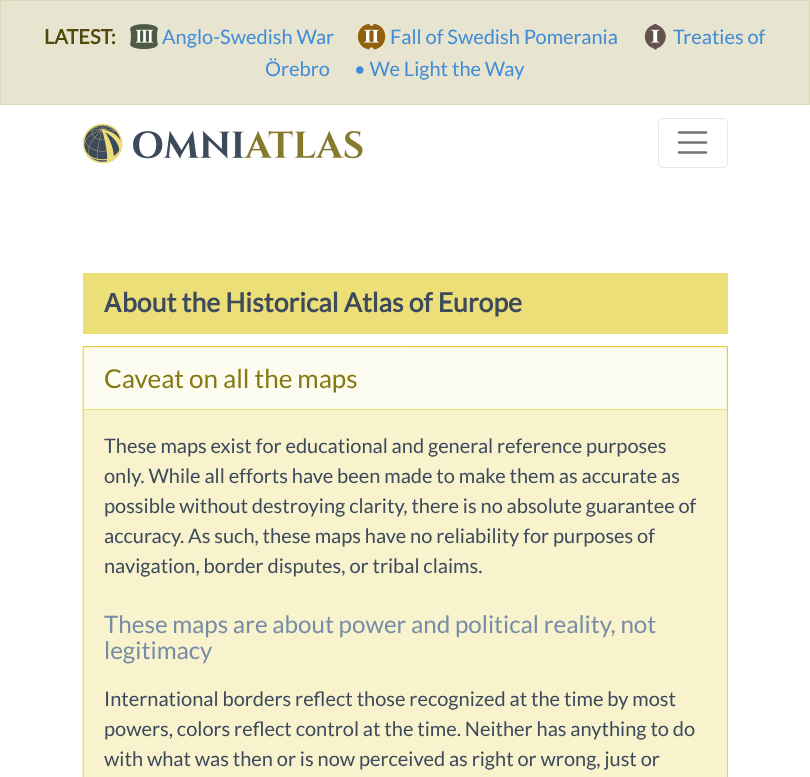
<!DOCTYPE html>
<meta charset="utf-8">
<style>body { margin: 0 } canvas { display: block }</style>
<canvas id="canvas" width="810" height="777"></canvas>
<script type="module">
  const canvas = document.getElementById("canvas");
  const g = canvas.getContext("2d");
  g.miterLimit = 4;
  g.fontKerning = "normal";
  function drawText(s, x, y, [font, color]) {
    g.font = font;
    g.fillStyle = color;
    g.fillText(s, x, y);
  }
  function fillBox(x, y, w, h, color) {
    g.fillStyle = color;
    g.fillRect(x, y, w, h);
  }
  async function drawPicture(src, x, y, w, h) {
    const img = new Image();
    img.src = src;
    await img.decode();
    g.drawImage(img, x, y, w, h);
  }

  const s1 = ["bold 20px Lato", "#50490B"];
  const s2 = ["20px Lato", "#408CD7"];
  const s3 = ["600 26.6px Noto Sans", "#3C4A5C"];
  const s4 = ["bold 26.6px Lato", "#3C4A5C"];
  const s5 = ["26px Lato", "#867912"];
  const s6 = ["20px Lato", "#3C4A5C"];
  const s7 = ["24.2px Lato", "#778CA6"];

  fillBox(0, 0, 810, 777, "#FFFFFF");
  g.fillStyle = "#E7E4D0";
  g.beginPath();
  g.rect(0.5, 0.5, 809, 104);
  g.fill();
  g.strokeStyle = "#DBD7B8";
  g.stroke();
  drawText("LATEST:", 44, 44, s1);
  await drawPicture("pic1.png", 130, 24, 28, 26);
  drawText("Anglo-Swedish War", 162, 44, s2);
  await drawPicture("pic2.png", 644, 24, 22, 26);
  drawText("Treaties of", 673, 44, s2);
  drawText("Örebro", 265, 76, s2);
  await drawPicture("pic3.png", 358, 24, 28, 26);
  drawText("Fall of Swedish Pomerania", 390, 44, s2);
  drawText("• We Light the Way", 354, 76, s2);
  await drawPicture("pic4.png", 83, 124, 280, 40);
  g.beginPath();
  g.roundRect(658.5, 118.5, 69, 49, 4.5);
  g.strokeStyle = "#E6E6E6";
  g.stroke();
  g.beginPath();
  g.moveTo(679, 132.5);
  g.lineTo(706, 132.5);
  g.moveTo(679, 142.5);
  g.lineTo(706, 142.5);
  g.moveTo(679, 152.5);
  g.lineTo(706, 152.5);
  g.strokeStyle = "#737373";
  g.lineWidth = 2.5;
  g.lineCap = "round";
  g.stroke();
  fillBox(83, 273, 645, 61, "#EDDF77");
  drawText("A", 104, 312, s3);
  drawText("bout the Historical Atlas of Europe", 122, 312, s4);
  g.fillStyle = "#F8F3CD";
  g.beginPath();
  g.rect(83.5, 346.5, 644, 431);
  g.fill();
  g.strokeStyle = "#E5D139";
  g.lineWidth = 1;
  g.stroke();
  g.fillStyle = "#FDFCF1";
  g.beginPath();
  g.roundRect(84, 348, 642, 62, [4, 4, 0, 0]);
  g.fill();
  fillBox(84, 409, 642, 1, "#EDDF77");
  drawText("Caveat on all the maps", 104, 388, s5);
  drawText("These maps exist for educational and general reference purposes", 104, 453, s6);
  drawText("only. While all efforts have been made to make them as accurate as", 104, 483, s6);
  drawText("possible without destroying clarity, there is no absolute guarantee of", 104, 513, s6);
  drawText("accuracy. As such, these maps have no reliability for purposes of", 104, 543, s6);
  drawText("navigation, border disputes, or tribal claims.", 104, 573, s6);
  drawText("These maps are about power and political reality, not", 104, 633, s7);
  drawText("legitimacy", 104, 659, s7);
  drawText("International borders reflect those recognized at the time by most", 104, 706, s6);
  drawText("powers, colors reflect control at the time. Neither has anything to do", 104, 736, s6);
  drawText("with what was then or is now perceived as right or wrong, just or", 104, 766, s6);
</script>
